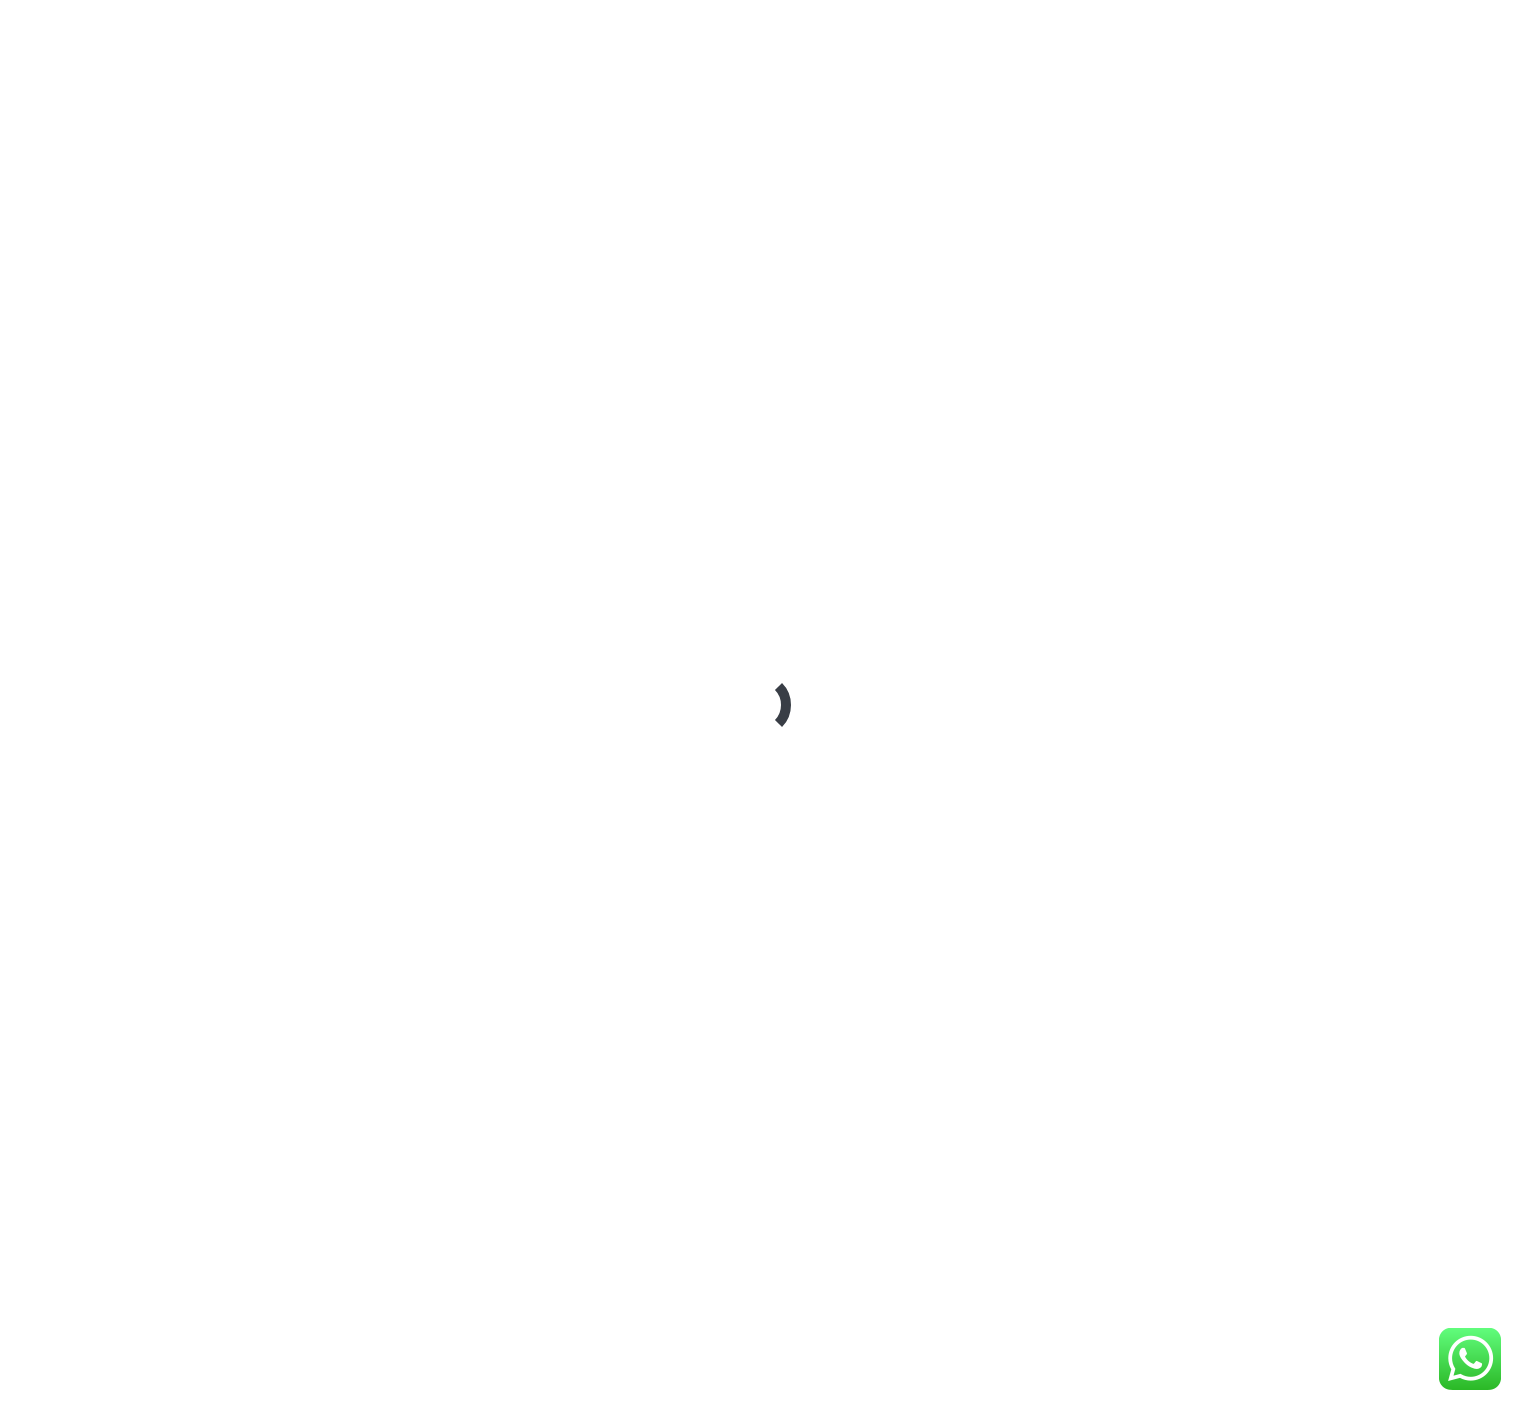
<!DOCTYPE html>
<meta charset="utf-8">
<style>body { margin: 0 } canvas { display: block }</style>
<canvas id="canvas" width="1519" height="1408"></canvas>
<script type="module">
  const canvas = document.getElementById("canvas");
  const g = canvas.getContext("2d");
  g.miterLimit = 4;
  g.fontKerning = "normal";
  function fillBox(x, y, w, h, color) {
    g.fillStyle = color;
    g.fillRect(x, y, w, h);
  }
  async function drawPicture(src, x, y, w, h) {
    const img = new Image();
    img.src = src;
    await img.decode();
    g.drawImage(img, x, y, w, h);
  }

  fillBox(0, 0, 1519, 1408, "#FFFFFF");
  g.beginPath();
  g.moveTo(778.5, 686.5);
  g.bezierCurveTo(788.5, 696.5, 788.5, 713.5, 778.5, 723.5);
  g.moveTo(778.5, 686.5);
  g.bezierCurveTo(788.5, 696.5, 788.5, 713.5, 778.5, 723.5);
  g.moveTo(778.5, 686.5);
  g.bezierCurveTo(788.5, 696.5, 788.5, 713.5, 778.5, 723.5);
  g.strokeStyle = "#393E46";
  g.lineWidth = 10;
  g.stroke();
  await drawPicture("pic1.png", 1439, 1328, 62, 62);
</script>
